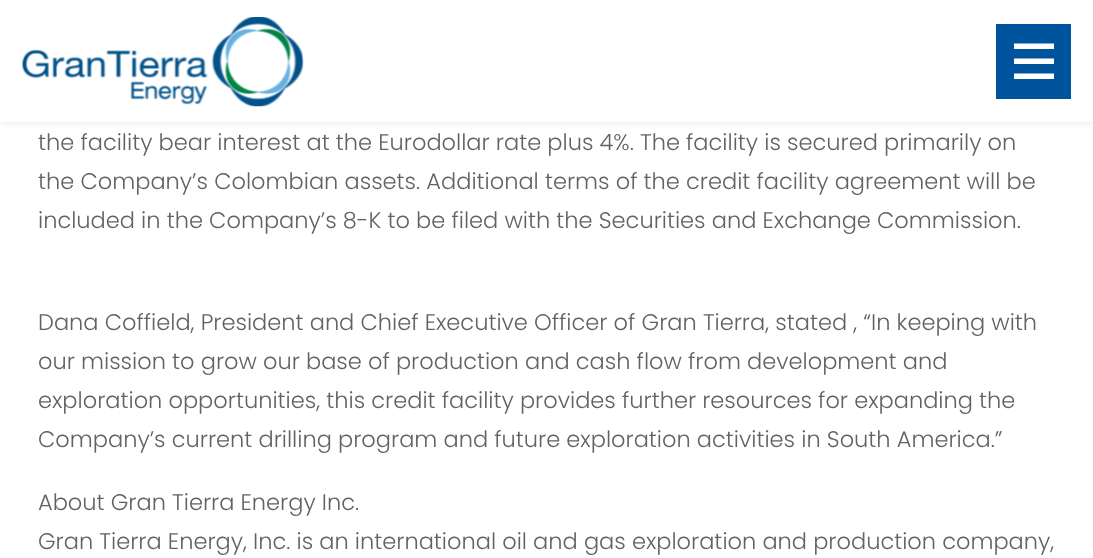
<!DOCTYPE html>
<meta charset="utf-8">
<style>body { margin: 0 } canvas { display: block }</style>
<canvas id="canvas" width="1093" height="558"></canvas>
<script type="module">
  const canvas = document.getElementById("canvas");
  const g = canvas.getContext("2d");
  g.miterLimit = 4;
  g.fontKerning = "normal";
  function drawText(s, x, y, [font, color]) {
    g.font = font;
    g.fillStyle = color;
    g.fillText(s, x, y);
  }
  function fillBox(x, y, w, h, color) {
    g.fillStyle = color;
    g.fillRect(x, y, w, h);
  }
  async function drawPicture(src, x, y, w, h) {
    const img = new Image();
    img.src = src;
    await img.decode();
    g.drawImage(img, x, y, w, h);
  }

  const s1 = ["300 22.5px Poppins", "#636161"];

  fillBox(0, 0, 1093, 558, "#FFFFFF");
  g.fillStyle = "rgba(0, 0, 0, 0.2)";
  g.filter = "blur(4.5px)";
  g.beginPath();
  g.rect(0, 0, 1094, 120);
  g.fill();
  g.filter = "none";
  fillBox(0, 0, 1093, 122, "#FFFFFF");
  await drawPicture("pic1.png", 22, 17, 282, 90);
  fillBox(996, 24, 75, 75, "#00549E");
  g.fillStyle = "#FFFFFF";
  g.beginPath();
  g.moveTo(1054, 43.5);
  g.lineTo(1014, 43.5);
  g.lineTo(1014, 49);
  g.lineTo(1054, 49);
  g.closePath();
  g.moveTo(1054, 58.5);
  g.lineTo(1014, 58.5);
  g.lineTo(1014, 64);
  g.lineTo(1054, 64);
  g.closePath();
  g.moveTo(1014, 73.5);
  g.lineTo(1054, 73.5);
  g.lineTo(1054, 79);
  g.lineTo(1014, 79);
  g.closePath();
  g.fill("evenodd");
  drawText("the facility bear interest at the Eurodollar rate plus 4%. The facility is secured primarily on", 38, 150, s1);
  drawText("the Company’s Colombian assets. Additional terms of the credit facility agreement will be", 38, 189, s1);
  drawText("included in the Company’s 8-K to be filed with the Securities and Exchange Commission.", 38, 228, s1);
  drawText("Dana Coffield, President and Chief Executive Officer of Gran Tierra, stated , “In keeping with", 38, 330, s1);
  drawText("our mission to grow our base of production and cash flow from development and", 38, 369, s1);
  drawText("exploration opportunities, this credit facility provides further resources for expanding the", 38, 408, s1);
  drawText("Company’s current drilling program and future exploration activities in South America.”", 38, 447, s1);
  drawText("About Gran Tierra Energy Inc.", 38, 510, s1);
  drawText("Gran Tierra Energy, Inc. is an international oil and gas exploration and production company,", 38, 549, s1);
</script>
